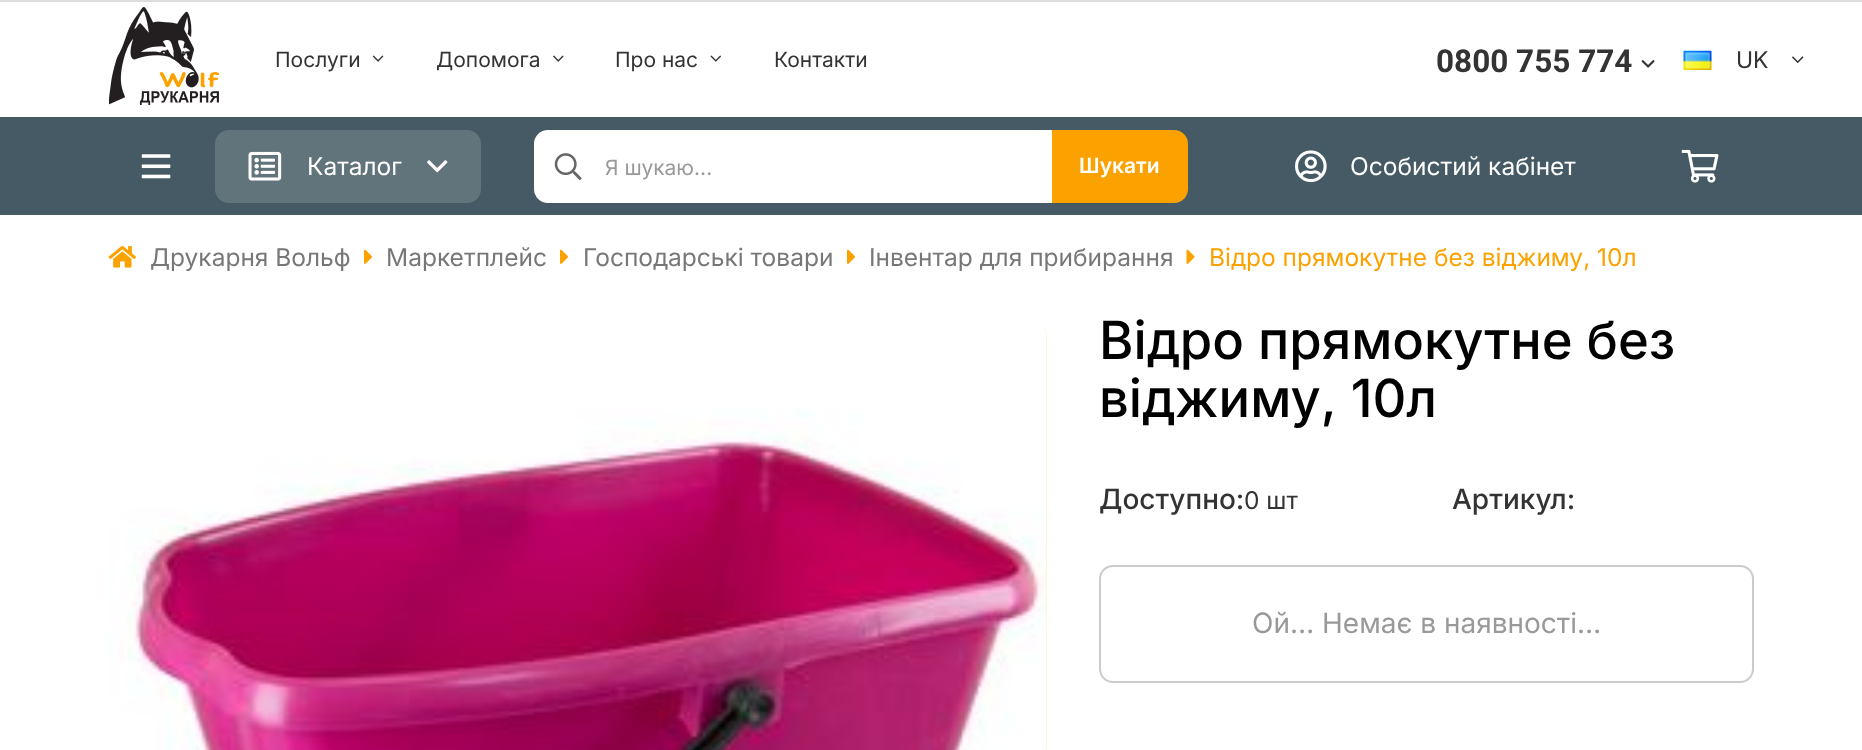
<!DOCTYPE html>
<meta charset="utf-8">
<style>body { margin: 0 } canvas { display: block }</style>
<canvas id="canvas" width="1862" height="750"></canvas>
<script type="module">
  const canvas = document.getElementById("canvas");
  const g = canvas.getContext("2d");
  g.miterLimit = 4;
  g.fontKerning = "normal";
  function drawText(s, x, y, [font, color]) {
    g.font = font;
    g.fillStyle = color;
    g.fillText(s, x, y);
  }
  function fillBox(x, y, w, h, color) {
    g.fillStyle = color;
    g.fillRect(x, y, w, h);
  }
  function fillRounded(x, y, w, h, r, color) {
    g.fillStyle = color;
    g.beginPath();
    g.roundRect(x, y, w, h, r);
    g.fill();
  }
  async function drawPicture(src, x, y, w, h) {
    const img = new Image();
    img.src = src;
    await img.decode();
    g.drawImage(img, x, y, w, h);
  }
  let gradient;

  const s1 = ["21px Inter", "#333333"];
  const s2 = ["bold 31.5px Roboto", "#333333"];
  const s3 = ["23px Inter", "#333333"];
  const s4 = ["24.5px Inter", "#FFFFFF"];
  const s5 = ["21px Inter", "#999999"];
  const s6 = ["600 21px Inter", "#FFFFFF"];
  const s7 = ["24.5px Inter", "#777777"];
  const s8 = ["24.5px Inter", "#FBA100"];
  const s9 = ["500 52.5px Inter", "#000000"];
  const s10 = ["500 28px Inter", "#333333"];
  const s11 = ["24.5px Inter", "#333333"];
  const s12 = ["28px Inter", "#999999"];

  fillBox(0, 0, 1862, 750, "#FFFFFF");
  fillBox(0, 0, 1862, 2, "#DEDEDE");
  await drawPicture("pic1.png", 109, 7, 111, 98);
  drawText("Послуги", 275, 67, s1);
  await drawPicture("pic2.png", 372, 55, 12, 7);
  drawText("Допомога", 436, 67, s1);
  await drawPicture("pic3.png", 553, 55, 11, 7);
  drawText("Про нас", 615, 67, s1);
  await drawPicture("pic4.png", 710, 55, 11, 7);
  drawText("Контакти", 774, 67, s1);
  drawText("0800 755 774", 1436, 72, s2);
  await drawPicture("pic5.png", 1641, 60, 14, 8);
  await drawPicture("pic6.png", 1683, 50, 29, 20);
  drawText("UK", 1736, 68, s3);
  await drawPicture("pic7.png", 1792, 56, 12, 7);
  fillBox(0, 117, 1862, 98, "#455A64");
  await drawPicture("pic8.png", 141, 154, 30, 25);
  fillRounded(215, 130, 266, 73, 14, "#61737B");
  await drawPicture("pic9.png", 248, 151, 34, 30);
  drawText("Каталог", 307, 175, s4);
  await drawPicture("pic10.png", 427, 160, 21, 13);
  g.beginPath();
  g.roundRect(534, 130, 518, 73, [14, 0, 0, 14]);
  g.fill();
  await drawPicture("pic11.png", 554, 153, 28, 28);
  drawText("Я шукаю...", 605, 175, s5);
  g.fillStyle = "#FBA100";
  g.beginPath();
  g.roundRect(1053, 131, 134, 71, [0, 13, 13, 0]);
  g.fill();
  g.strokeStyle = "#FBA100";
  g.lineWidth = 2;
  g.stroke();
  drawText("Шукати", 1079, 173, s6);
  await drawPicture("pic12.png", 1295, 150, 32, 33);
  drawText("Особистий кабінет", 1350, 175, s4);
  await drawPicture("pic13.png", 1681, 149, 38, 34);
  await drawPicture("pic14.png", 108, 246, 28, 22);
  drawText("Друкарня Вольф", 150, 266, s7);
  await drawPicture("pic15.png", 364, 249, 8, 15);
  drawText("Маркетплейс", 386, 266, s7);
  await drawPicture("pic15.png", 560, 249, 8, 15);
  drawText("Господарські товари", 583, 266, s7);
  await drawPicture("pic15.png", 847, 249, 8, 15);
  drawText("Інвентар для прибирання", 869, 266, s7);
  await drawPicture("pic16.png", 1186, 249, 9, 15);
  drawText("Відро прямокутне без віджиму, 10л", 1209, 266, s8);
  gradient = g.createLinearGradient(533, 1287, 622, 274);
  gradient.addColorStop(0, "#FFF9E3");
  gradient.addColorStop(1, "#FFF2C6");
  g.fillStyle = gradient;
  g.beginPath();
  g.roundRect(109, 312, 938, 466, 28);
  g.fill();
  await drawPicture("pic17.png", 109, 312, 938, 438);
  drawText("Відро прямокутне без", 1099, 359, s9);
  drawText("віджиму, 10л", 1099, 417, s9);
  drawText("Доступно:", 1099, 509, s10);
  drawText("0 шт", 1244, 509, s11);
  drawText("Артикул:", 1452, 509, s10);
  g.beginPath();
  g.roundRect(1100, 566, 653, 116, 13);
  g.strokeStyle = "#CCCCCC";
  g.stroke();
  drawText("Ой… Немає в наявності…", 1252, 633, s12);
</script>
